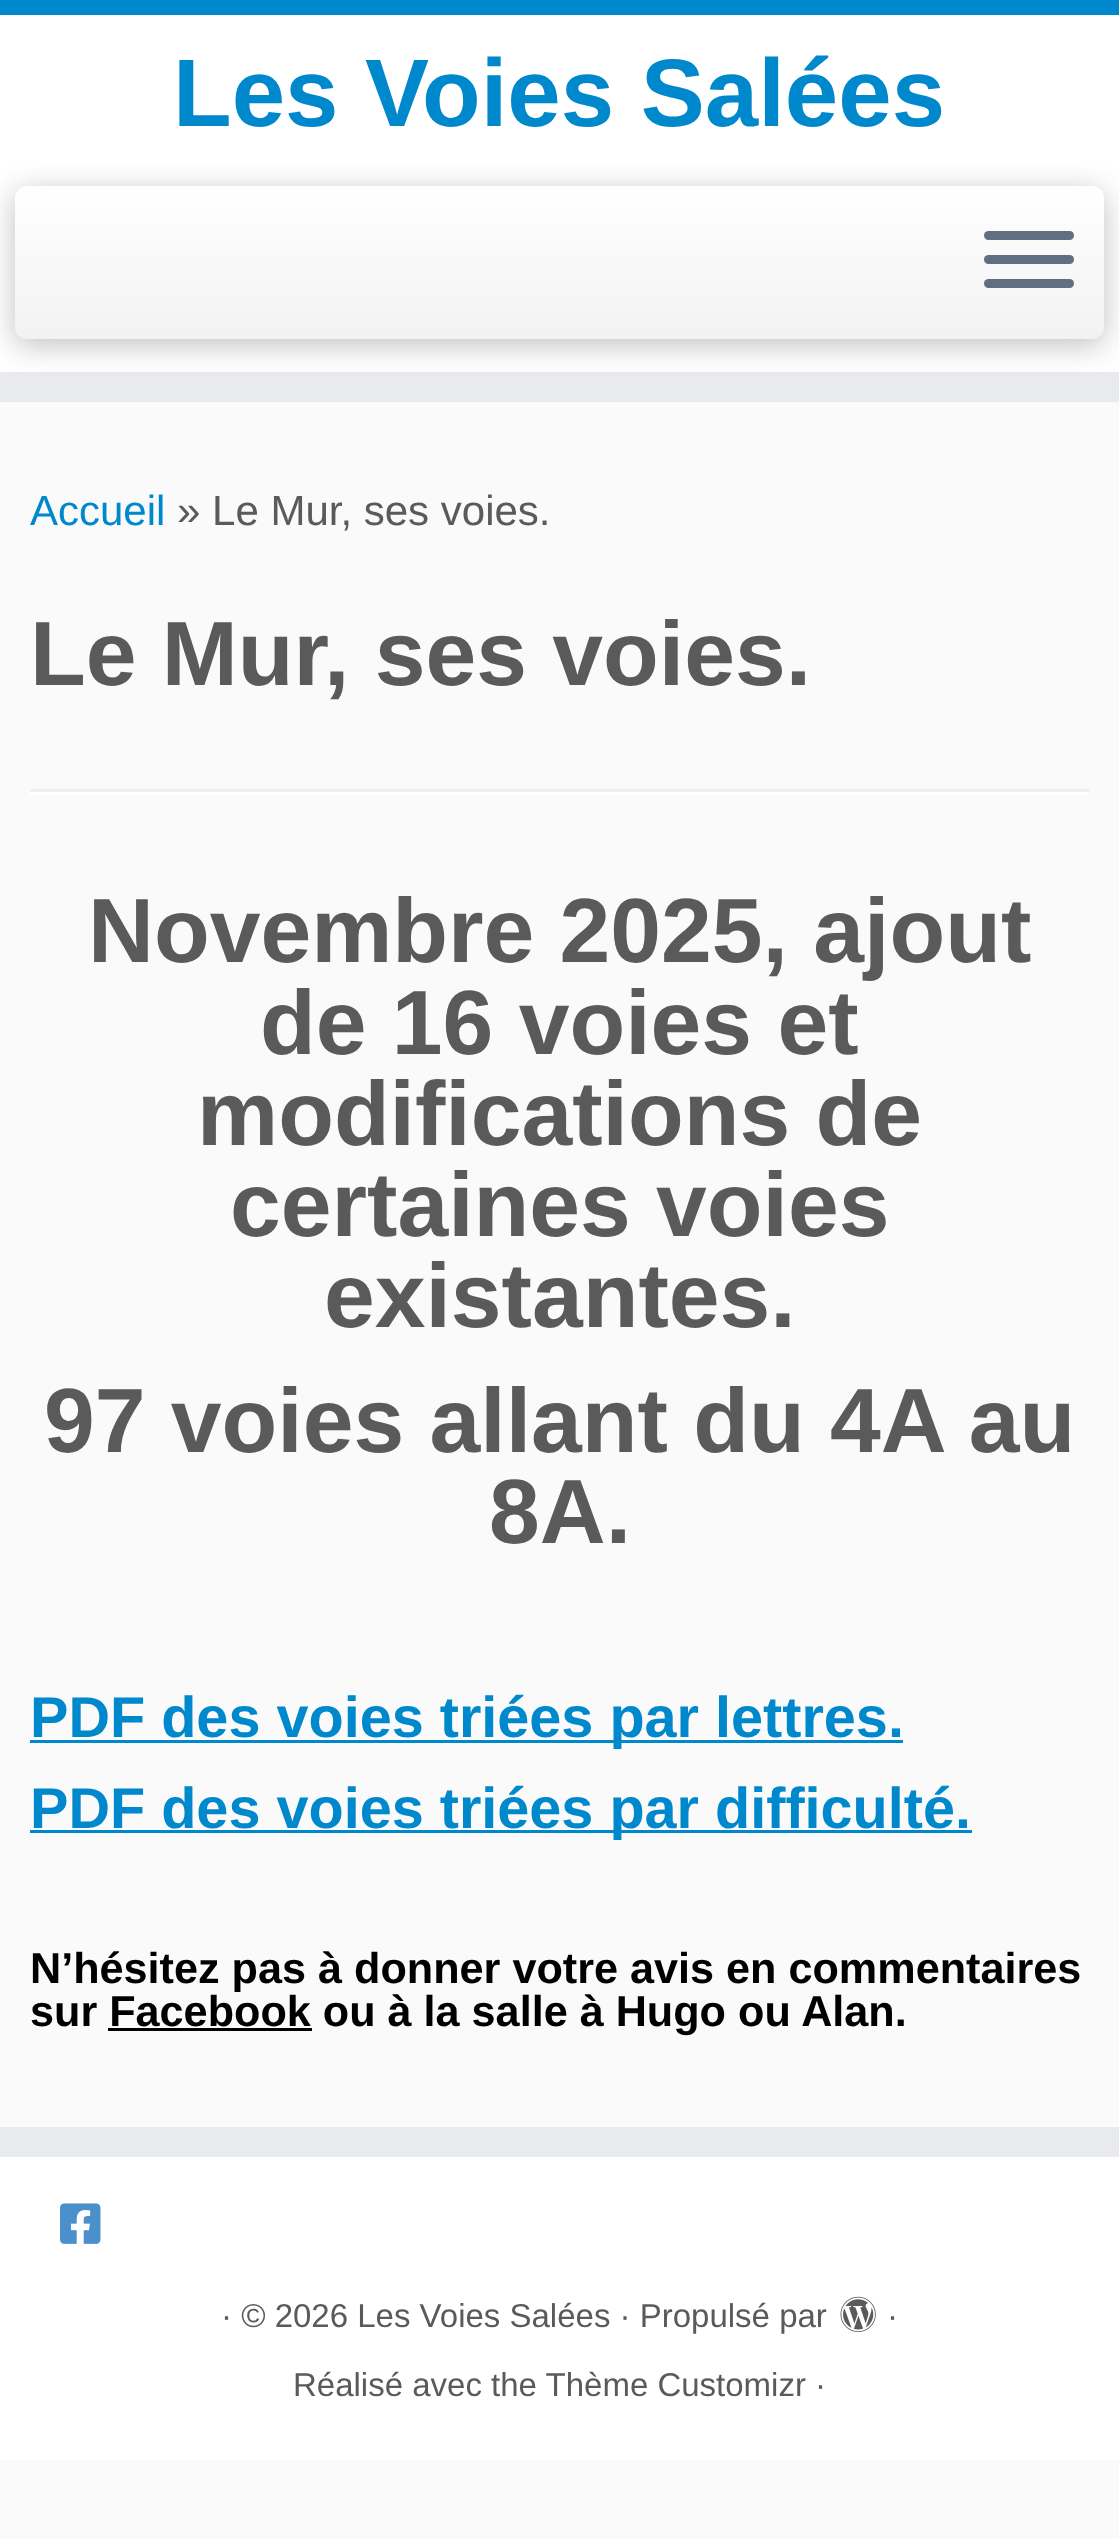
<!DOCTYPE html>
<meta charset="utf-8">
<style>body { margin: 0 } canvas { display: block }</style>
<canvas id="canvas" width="1119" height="2539"></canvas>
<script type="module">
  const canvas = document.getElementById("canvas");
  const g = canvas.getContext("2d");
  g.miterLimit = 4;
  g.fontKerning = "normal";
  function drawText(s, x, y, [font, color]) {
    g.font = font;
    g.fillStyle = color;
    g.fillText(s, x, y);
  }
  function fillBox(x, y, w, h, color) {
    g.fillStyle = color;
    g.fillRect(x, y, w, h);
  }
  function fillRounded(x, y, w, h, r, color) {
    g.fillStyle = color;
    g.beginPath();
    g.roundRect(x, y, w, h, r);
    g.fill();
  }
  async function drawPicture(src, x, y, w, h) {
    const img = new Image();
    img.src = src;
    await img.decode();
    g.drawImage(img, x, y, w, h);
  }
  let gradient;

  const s1 = ["bold 96px Liberation Sans", "#0088CC"];
  const s2 = ["42px Liberation Sans", "#0088CC"];
  const s3 = ["42px Liberation Sans", "#5A5A5A"];
  const s4 = ["bold 91.25px Liberation Sans", "#5A5A5A"];
  const s5 = ["bold 57.6px Liberation Sans", "#0088CC"];
  const s6 = ["bold 43.2px Liberation Sans", "#000000"];
  const s7 = ["33px Liberation Sans", "#5A5A5A"];

  fillBox(0, 0, 1119, 2539, "#FAFAFA");
  fillBox(0, 15, 1119, 357, "#FFFFFF");
  fillBox(0, 0, 1119, 15, "#0088CC");
  fillBox(0, 372, 1119, 30, "#E9EAEE");
  drawText("Les Voies Salées", 173, 126, s1);
  g.fillStyle = "rgba(0, 0, 0, 0.25)";
  g.filter = "blur(15px)";
  g.beginPath();
  g.roundRect(15, 192, 1089, 153, 12);
  g.fill();
  g.filter = "none";
  gradient = g.createLinearGradient(560, 186, 560, 339);
  gradient.addColorStop(0, "#FFFFFF");
  gradient.addColorStop(1, "#F2F2F2");
  g.fillStyle = gradient;
  g.beginPath();
  g.roundRect(15, 186, 1089, 153, 12);
  g.fill();
  fillRounded(984, 231, 90, 9, 4.5, "#5F6F81");
  fillRounded(984, 255, 90, 9, 4.5, "#5F6F81");
  fillRounded(984, 279, 90, 9, 4.5, "#5F6F81");
  drawText("Accueil", 30, 525, s2);
  drawText("» Le Mur, ses voies.", 177, 525, s3);
  drawText("Le Mur, ses voies.", 30, 685, s4);
  fillBox(30, 789, 1059, 3, "#EEEEEE");
  fillBox(30, 792, 1059, 3, "#FFFFFF");
  drawText("Novembre 2025, ajout", 88, 962, s4);
  drawText("de 16 voies et", 260, 1054, s4);
  drawText("modifications de", 197, 1145, s4);
  drawText("certaines voies", 230, 1236, s4);
  drawText("existantes.", 324, 1327, s4);
  drawText("97 voies allant du 4A au", 44, 1452, s4);
  drawText("8A.", 489, 1543, s4);
  fillBox(30, 1740, 873, 3, "#0088CC");
  drawText("PDF des voies triées par lettres.", 30, 1737, s5);
  fillBox(30, 1830, 942, 3, "#0088CC");
  drawText("PDF des voies triées par difficulté.", 30, 1828, s5);
  drawText("N’hésitez pas à donner votre avis en commentaires", 30, 1983, s6);
  drawText("sur Facebook ou à la salle à Hugo ou Alan.", 30, 2026, s6);
  fillBox(108, 2028, 204, 3, "#000000");
  fillBox(0, 2127, 1119, 30, "#E9EAEE");
  fillBox(0, 2157, 1119, 303, "#FFFFFF");
  await drawPicture("pic1.png", 60, 2203, 41, 41);
  drawText("· © 2026 Les Voies Salées · Propulsé par", 221, 2327, s7);
  await drawPicture("pic2.png", 840, 2296, 36, 36);
  drawText("·", 887, 2327, s7);
  drawText("Réalisé avec the Thème Customizr ·", 293, 2396, s7);
</script>
